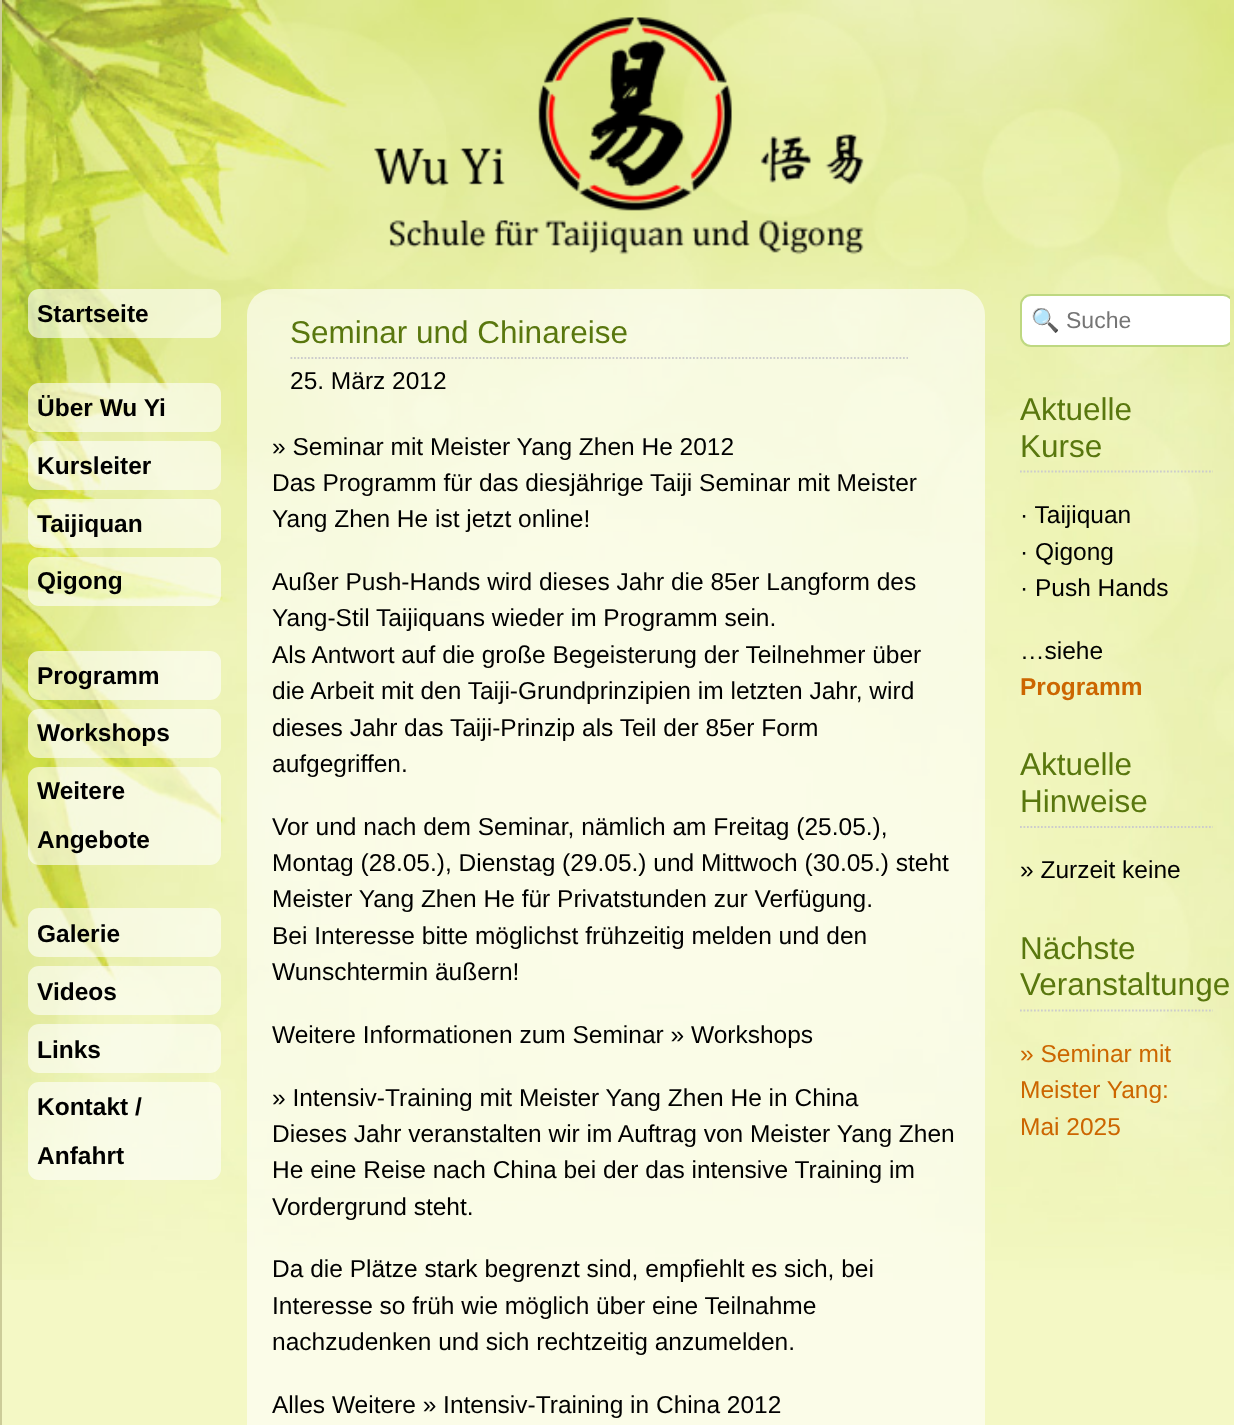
<!DOCTYPE html>
<meta charset="utf-8">
<style>body { margin: 0 } canvas { display: block }</style>
<canvas id="canvas" width="1234" height="1425"></canvas>
<script type="module">
  const canvas = document.getElementById("canvas");
  const g = canvas.getContext("2d");
  g.miterLimit = 4;
  g.fontKerning = "normal";
  function drawText(s, x, y, [font, color]) {
    g.font = font;
    g.fillStyle = color;
    g.fillText(s, x, y);
  }
  function fillBox(x, y, w, h, color) {
    g.fillStyle = color;
    g.fillRect(x, y, w, h);
  }
  function fillRounded(x, y, w, h, r, color) {
    g.fillStyle = color;
    g.beginPath();
    g.roundRect(x, y, w, h, r);
    g.fill();
  }
  async function drawPicture(src, x, y, w, h) {
    const img = new Image();
    img.src = src;
    await img.decode();
    g.drawImage(img, x, y, w, h);
  }

  const s1 = ["bold 24.5px Liberation Sans", "#000000"];
  const s2 = ["31.5px Liberation Sans", "#59770E"];
  const s3 = ["24.5px Liberation Sans", "#000000"];
  const s4 = ["23px Noto Color Emoji", "#757575"];
  const s5 = ["23px Liberation Sans", "#757575"];
  const s6 = ["bold 24.5px Liberation Sans", "#CC6600"];
  const s7 = ["24.5px Liberation Sans", "#CC6600"];

  fillBox(0, 0, 1234, 1425, "#F4F8C5");
  await drawPicture("pic1.png", 2, 0, 1232, 1280);
  fillBox(0, 0, 2, 1425, "#CCCC99");
  await drawPicture("pic2.png", 374, 17, 490, 238);
  fillRounded(28, 289, 193, 49, 11, "rgba(255, 255, 255, 0.6)");
  drawText("Startseite", 37, 322, s1);
  fillRounded(28, 383, 193, 49, 11, "rgba(255, 255, 255, 0.6)");
  drawText("Über Wu Yi", 37, 416, s1);
  fillRounded(28, 441, 193, 49, 11, "rgba(255, 255, 255, 0.6)");
  drawText("Kursleiter", 37, 474, s1);
  fillRounded(28, 499, 193, 49, 11, "rgba(255, 255, 255, 0.6)");
  drawText("Taijiquan", 37, 532, s1);
  fillRounded(28, 557, 193, 49, 11, "rgba(255, 255, 255, 0.6)");
  drawText("Qigong", 37, 589, s1);
  fillRounded(28, 651, 193, 49, 11, "rgba(255, 255, 255, 0.6)");
  drawText("Programm", 37, 684, s1);
  fillRounded(28, 709, 193, 49, 11, "rgba(255, 255, 255, 0.6)");
  drawText("Workshops", 37, 741, s1);
  fillRounded(28, 767, 193, 98, 11, "rgba(255, 255, 255, 0.6)");
  drawText("Weitere", 37, 799, s1);
  drawText("Angebote", 37, 848, s1);
  fillRounded(28, 908, 193, 49, 11, "rgba(255, 255, 255, 0.6)");
  drawText("Galerie", 37, 942, s1);
  fillRounded(28, 966, 193, 49, 11, "rgba(255, 255, 255, 0.6)");
  drawText("Videos", 37, 1000, s1);
  fillRounded(28, 1024, 193, 49, 11, "rgba(255, 255, 255, 0.6)");
  drawText("Links", 37, 1058, s1);
  fillRounded(28, 1082, 193, 98, 11, "rgba(255, 255, 255, 0.6)");
  drawText("Kontakt /", 37, 1115, s1);
  drawText("Anfahrt", 37, 1164, s1);
  fillRounded(247, 289, 738, 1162, 26, "rgba(255, 255, 255, 0.6)");
  g.beginPath();
  g.moveTo(290.5, 358);
  g.lineTo(908, 358);
  g.strokeStyle = "#CCCCCC";
  g.lineWidth = 1.8;
  g.setLineDash([1.75, 1.75]);
  g.stroke();
  drawText("Seminar und Chinareise", 290, 343, s2);
  drawText("25. März 2012", 290, 389, s3);
  drawText("» Seminar mit Meister Yang Zhen He 2012", 272, 455, s3);
  drawText("Das Programm für das diesjährige Taiji Seminar mit Meister", 272, 491, s3);
  drawText("Yang Zhen He ist jetzt online!", 272, 527, s3);
  drawText("Außer Push-Hands wird dieses Jahr die 85er Langform des", 272, 590, s3);
  drawText("Yang-Stil Taijiquans wieder im Programm sein.", 272, 626, s3);
  drawText("Als Antwort auf die große Begeisterung der Teilnehmer über", 272, 663, s3);
  drawText("die Arbeit mit den Taiji-Grundprinzipien im letzten Jahr, wird", 272, 699, s3);
  drawText("dieses Jahr das Taiji-Prinzip als Teil der 85er Form", 272, 736, s3);
  drawText("aufgegriffen.", 272, 772, s3);
  drawText("Vor und nach dem Seminar, nämlich am Freitag (25.05.),", 272, 835, s3);
  drawText("Montag (28.05.), Dienstag (29.05.) und Mittwoch (30.05.) steht", 272, 871, s3);
  drawText("Meister Yang Zhen He für Privatstunden zur Verfügung.", 272, 907, s3);
  drawText("Bei Interesse bitte möglichst frühzeitig melden und den", 272, 944, s3);
  drawText("Wunschtermin äußern!", 272, 980, s3);
  drawText("Weitere Informationen zum Seminar » Workshops", 272, 1043, s3);
  drawText("» Intensiv-Training mit Meister Yang Zhen He in China", 272, 1106, s3);
  drawText("Dieses Jahr veranstalten wir im Auftrag von Meister Yang Zhen", 272, 1142, s3);
  drawText("He eine Reise nach China bei der das intensive Training im", 272, 1178, s3);
  drawText("Vordergrund steht.", 272, 1215, s3);
  drawText("Da die Plätze stark begrenzt sind, empfiehlt es sich, bei", 272, 1277, s3);
  drawText("Interesse so früh wie möglich über eine Teilnahme", 272, 1314, s3);
  drawText("nachzudenken und sich rechtzeitig anzumelden.", 272, 1350, s3);
  drawText("Alles Weitere » Intensiv-Training in China 2012", 272, 1413, s3);
  g.save();
  g.beginPath();
  g.rect(985, 271, 245, 928);
  g.clip();
  g.fillStyle = "#FFFFFF";
  g.beginPath();
  g.roundRect(1021, 295, 212, 51, 10);
  g.fill();
  g.strokeStyle = "#BED881";
  g.lineWidth = 2;
  g.setLineDash([]);
  g.stroke();
  g.restore();
  g.save();
  g.beginPath();
  g.rect(1031, 308, 192, 26);
  g.clip();
  drawText("🔍", 1031, 328, s4);
  g.restore();
  drawText("Suche", 1066, 328, s5);
  g.beginPath();
  g.moveTo(1020, 471.5);
  g.lineTo(1213, 471.5);
  g.stroke();
  drawText("Aktuelle", 1020, 420, s2);
  drawText("Kurse", 1020, 457, s2);
  drawText("· Taijiquan", 1020, 523, s3);
  drawText("· Qigong", 1020, 560, s3);
  drawText("· Push Hands", 1020, 596, s3);
  drawText("…siehe", 1020, 659, s3);
  drawText("Programm", 1020, 695, s6);
  g.beginPath();
  g.moveTo(1020, 827);
  g.lineTo(1213, 827);
  g.stroke();
  drawText("Aktuelle", 1020, 775, s2);
  drawText("Hinweise", 1020, 812, s2);
  drawText("» Zurzeit keine", 1020, 878, s3);
  g.beginPath();
  g.moveTo(1020, 1010.5);
  g.lineTo(1213, 1010.5);
  g.stroke();
  drawText("Nächste", 1020, 959, s2);
  drawText("Veranstaltunge", 1020, 995, s2);
  drawText("» Seminar mit", 1020, 1062, s7);
  drawText("Meister Yang:", 1020, 1098, s7);
  drawText("Mai 2025", 1020, 1135, s7);
</script>
